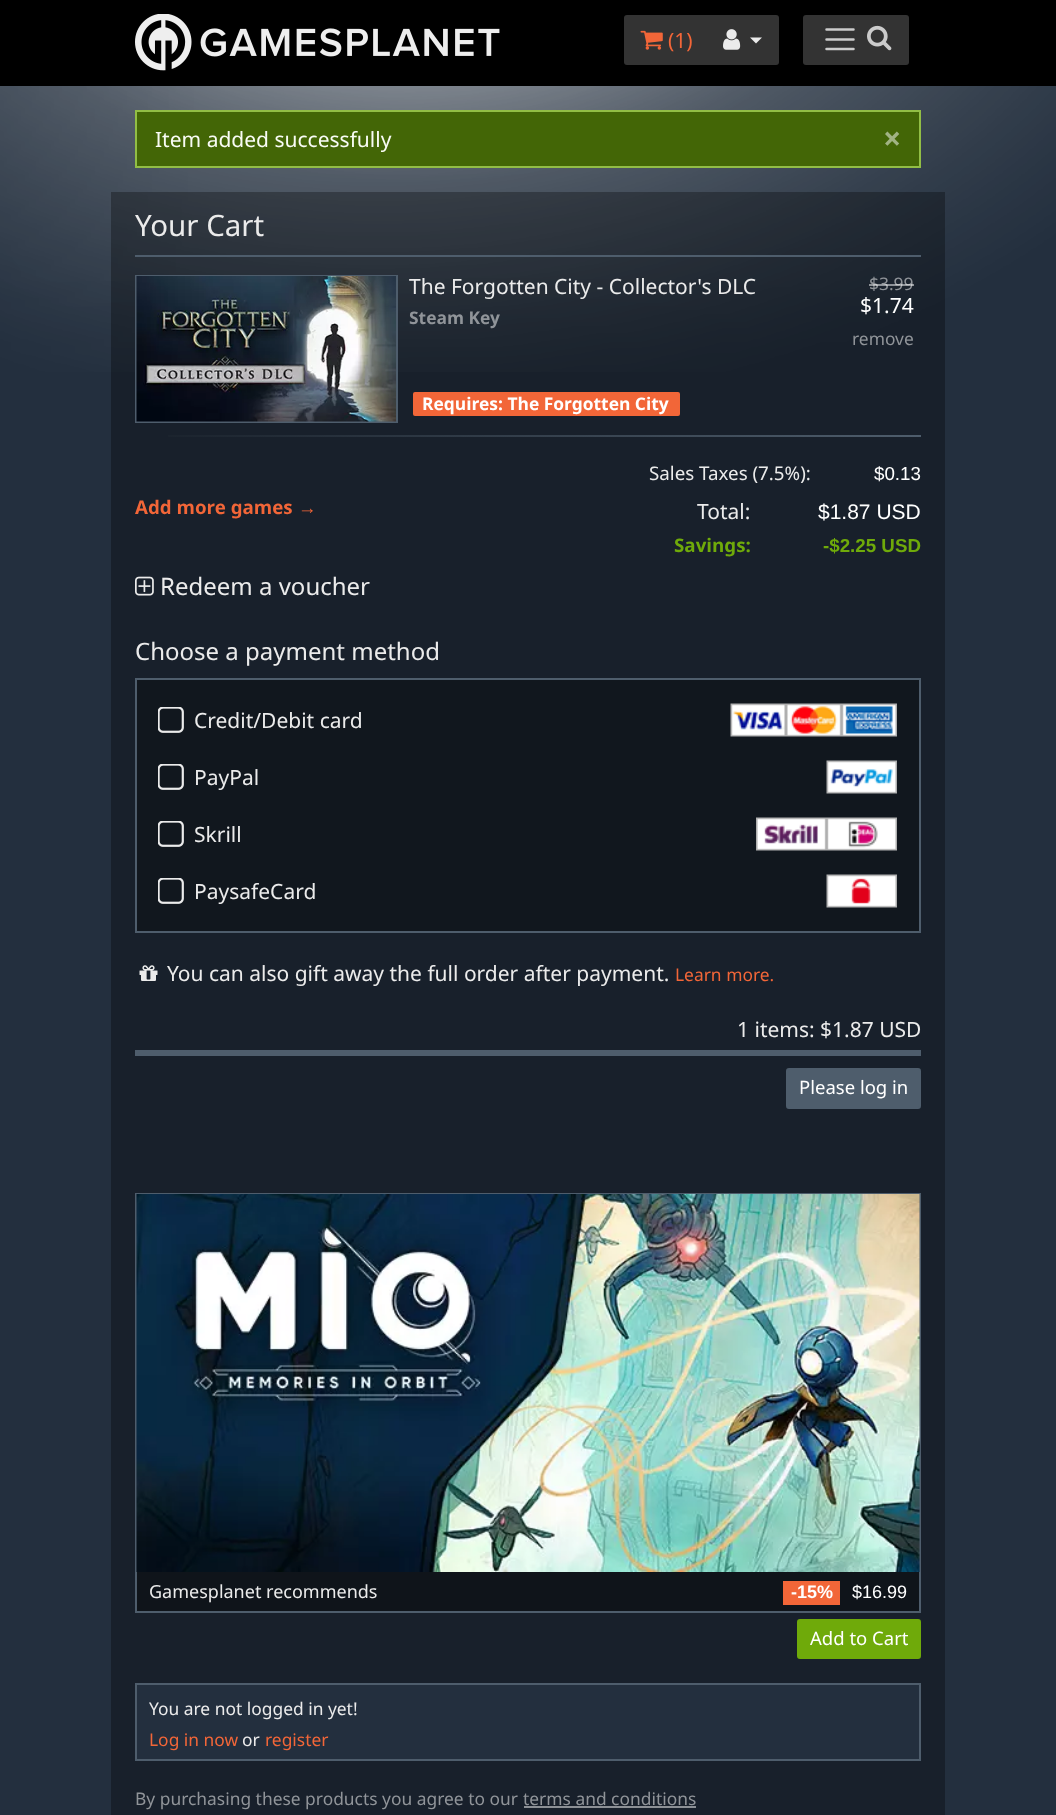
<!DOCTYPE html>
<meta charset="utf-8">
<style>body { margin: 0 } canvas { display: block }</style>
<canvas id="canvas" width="1056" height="1815"></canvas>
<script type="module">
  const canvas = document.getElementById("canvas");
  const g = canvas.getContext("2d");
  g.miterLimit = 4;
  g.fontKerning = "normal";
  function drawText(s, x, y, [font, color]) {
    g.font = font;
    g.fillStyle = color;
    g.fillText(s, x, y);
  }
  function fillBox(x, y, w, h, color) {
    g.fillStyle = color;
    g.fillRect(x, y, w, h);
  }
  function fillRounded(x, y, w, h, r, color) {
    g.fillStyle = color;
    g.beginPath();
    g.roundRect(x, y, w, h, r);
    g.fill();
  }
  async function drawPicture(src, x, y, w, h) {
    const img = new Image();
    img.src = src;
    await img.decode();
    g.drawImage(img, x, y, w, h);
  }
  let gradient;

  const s1 = ["21px Noto Sans", "#F26638"];
  const s2 = ["21px Noto Sans", "#F9FCF5"];
  const s3 = ["bold 32px Noto Sans", "#A1B383"];
  const s4 = ["29.5px Noto Sans", "#EBEBEB"];
  const s5 = ["21px Noto Sans", "#EBEBEB"];
  const s6 = ["17.4px Noto Sans", "#909499"];
  const s7 = ["21px Noto Sans", "#FFFFFF"];
  const s8 = ["bold 17.4px Noto Sans", "#909499"];
  const s9 = ["bold 17.4px Noto Sans", "#FFFFFF"];
  const s10 = ["18.75px Noto Sans", "#EBEBEB"];
  const s11 = ["18.75px Liberation Sans", "#FFFFFF"];
  const s12 = ["bold 18.75px Noto Sans", "#F26638"];
  const s13 = ["bold 18.75px Liberation Sans", "#F26638"];
  const s14 = ["21px Liberation Sans", "#FFFFFF"];
  const s15 = ["bold 18.75px Noto Sans", "#6FAA0A"];
  const s16 = ["bold 18.75px Liberation Sans", "#6FAA0A"];
  const s17 = ["24px Noto Sans", "#EBEBEB"];
  const s18 = ["17.4px Noto Sans", "#F26638"];
  const s19 = ["18.5px Noto Sans", "#FFFFFF"];
  const s20 = ["18px Noto Sans", "#EBEBEB"];
  const s21 = ["bold 18px Liberation Sans", "#FFFFFF"];
  const s22 = ["18px Liberation Sans", "#FFFFFF"];
  const s23 = ["17.4px Noto Sans", "#EBEBEB"];

  fillBox(0, 0, 1056, 1815, "#232F3E");
  await drawPicture("pic1.png", 0, 86, 1056, 286);
  fillBox(0, 0, 1056, 86, "#000000");
  await drawPicture("pic2.png", 135, 14, 365, 57);
  g.fillStyle = "#333333";
  g.beginPath();
  g.roundRect(624, 15, 84, 50, [3, 0, 0, 3]);
  g.fill();
  await drawPicture("pic3.png", 640, 30, 23, 20);
  drawText("(1)", 668, 48, s1);
  g.fillStyle = "#333333";
  g.beginPath();
  g.roundRect(707, 15, 72, 50, [0, 3, 3, 0]);
  g.fill();
  await drawPicture("pic4.png", 723, 29, 18, 21);
  g.fillStyle = "#EBEBEB";
  g.beginPath();
  g.moveTo(750, 37.5);
  g.lineTo(762, 37.5);
  g.lineTo(756, 43.5);
  g.closePath();
  g.fill();
  fillRounded(803, 15, 106, 50, 3, "#333333");
  g.beginPath();
  g.moveTo(826.5, 29.5);
  g.lineTo(853.5, 29.5);
  g.moveTo(826.5, 39.5);
  g.lineTo(853.5, 39.5);
  g.moveTo(826.5, 49);
  g.lineTo(853.5, 49);
  g.strokeStyle = "#CCCCCC";
  g.lineWidth = 2.5;
  g.lineCap = "round";
  g.stroke();
  await drawPicture("pic5.png", 867, 25, 25, 26);
  g.fillStyle = "#436606";
  g.beginPath();
  g.rect(136, 111, 784, 56);
  g.fill();
  g.strokeStyle = "#92BE45";
  g.lineWidth = 2;
  g.stroke();
  drawText("Item added successfully", 155, 147, s2);
  drawText("×", 883, 150, s3);
  fillBox(111, 192, 834, 1623, "rgba(0, 0, 0, 0.3)");
  drawText("Your Cart", 135, 236, s4);
  fillBox(135, 255, 786, 2, "#4E5D6C");
  g.strokeStyle = "#4E5D6C";
  g.strokeRect(136, 276, 261, 146);
  await drawPicture("pic6.png", 136, 276, 260, 146);
  drawText("The Forgotten City - Collector's DLC", 409, 294, s5);
  drawText("$3.99", 869, 290, s6);
  fillBox(869, 284, 45, 2, "rgba(255, 255, 255, 0.5)");
  drawText("$1.74", 860, 313, s7);
  drawText("remove", 852, 345, s6);
  drawText("Steam Key", 409, 324, s8);
  fillRounded(413, 392, 267, 24, 2, "#F26638");
  drawText("Requires: The Forgotten City", 422, 410, s9);
  gradient = g.createLinearGradient(921, 436, 135, 436);
  gradient.addColorStop(0, "#4E5D6C");
  gradient.addColorStop(1, "#19212B");
  g.fillStyle = gradient;
  g.fillRect(168, 435, 753, 2);
  drawText("Sales Taxes (7.5%):", 649, 480, s10);
  drawText("$0.13", 874, 480, s11);
  drawText("Add more games", 135, 514, s12);
  drawText("→", 298, 514, s13);
  drawText("Total:", 697, 519, s5);
  drawText("$1.87 USD", 818, 519, s14);
  drawText("Savings:", 674, 552, s15);
  drawText("-$2.25 USD", 823, 552, s16);
  await drawPicture("pic7.png", 135, 576, 19, 20);
  drawText("Redeem a voucher", 160, 595, s17);
  drawText("Choose a payment method", 135, 660, s17);
  g.fillStyle = "#11171E";
  g.beginPath();
  g.rect(136, 679, 784, 253);
  g.fill();
  g.stroke();
  await drawPicture("pic8.png", 158, 707, 26, 26);
  drawText("Credit/Debit card", 194, 728, s5);
  await drawPicture("pic9.png", 730, 703, 167, 34);
  await drawPicture("pic8.png", 158, 764, 26, 26);
  drawText("PayPal", 194, 785, s5);
  await drawPicture("pic10.png", 826, 760, 71, 34);
  await drawPicture("pic8.png", 158, 821, 26, 26);
  drawText("Skrill", 194, 842, s5);
  await drawPicture("pic11.png", 756, 817, 141, 34);
  await drawPicture("pic8.png", 158, 878, 26, 26);
  drawText("PaysafeCard", 194, 899, s5);
  await drawPicture("pic12.png", 826, 874, 71, 34);
  await drawPicture("pic13.png", 139, 965, 19, 16);
  drawText("You can also gift away the full order after payment.", 167, 981, s5);
  drawText("Learn more.", 675, 981, s18);
  drawText("1 items: $1.87 USD", 737, 1037, s5);
  fillBox(135, 1050, 786, 6, "#4E5D6C");
  g.beginPath();
  g.roundRect(787, 1069, 133, 39, 2);
  g.fill();
  g.stroke();
  drawText("Please log in", 799, 1094, s19);
  fillBox(137, 1572, 782, 39, "#0F141A");
  g.strokeRect(136, 1194, 784, 418);
  await drawPicture("pic14.png", 136, 1194, 784, 378);
  drawText("Gamesplanet recommends", 149, 1598, s20);
  fillBox(783, 1581, 57, 24, "#F26638");
  drawText("-15%", 791, 1598, s21);
  drawText("$16.99", 852, 1598, s22);
  g.fillStyle = "#6FAA0A";
  g.beginPath();
  g.roundRect(798, 1620, 122, 38, 2);
  g.fill();
  g.strokeStyle = "#6FAA0A";
  g.stroke();
  drawText("Add to Cart", 810, 1645, s19);
  g.fillStyle = "#232F3E";
  g.beginPath();
  g.rect(136, 1684, 784, 76);
  g.fill();
  g.strokeStyle = "#4E5D6C";
  g.stroke();
  drawText("You are not logged in yet!", 149, 1715, s23);
  drawText("Log in now", 149, 1746, s18);
  drawText("or", 242, 1746, s23);
  drawText("register", 265, 1746, s18);
  drawText("By purchasing these products you agree to our", 135, 1805, s6);
  drawText("terms and conditions", 523, 1805, s6);
  fillBox(524, 1806, 172, 2, "#8C9095");
</script>
